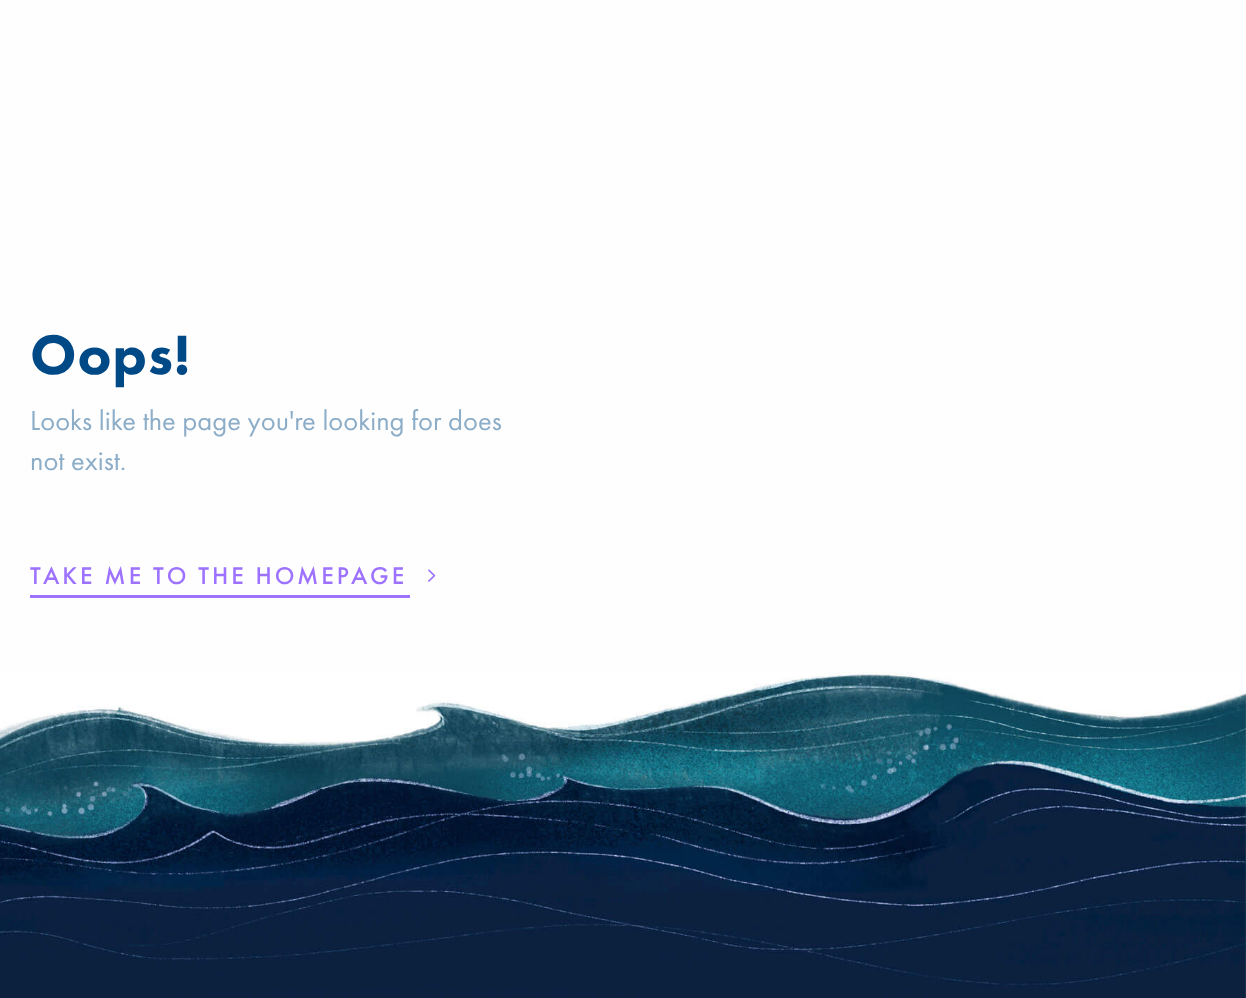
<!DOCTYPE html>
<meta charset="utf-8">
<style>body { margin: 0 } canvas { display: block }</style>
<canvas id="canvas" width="1246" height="998"></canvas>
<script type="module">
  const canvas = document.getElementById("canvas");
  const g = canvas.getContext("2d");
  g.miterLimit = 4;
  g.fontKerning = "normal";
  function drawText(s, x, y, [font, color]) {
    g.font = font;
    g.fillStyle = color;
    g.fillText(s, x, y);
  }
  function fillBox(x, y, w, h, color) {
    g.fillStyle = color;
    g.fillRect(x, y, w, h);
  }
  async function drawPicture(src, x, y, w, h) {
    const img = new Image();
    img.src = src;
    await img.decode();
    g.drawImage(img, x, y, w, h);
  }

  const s1 = ["900 57.5px Futura PT", "#004987"];
  const s2 = ["28.5px Futura PT", "#8CADC8"];
  const s3 = ["500 25px Futura PT", "#9D72FF"];

  fillBox(0, 0, 1246, 998, "#FEFEFE");
  await drawPicture("pic1.png", 0, 672, 1246, 326);
  g.letterSpacing = "1px";
  drawText("Oops!", 30, 374, s1);
  g.letterSpacing = "0px";
  drawText("Looks like the page you're looking for does", 30, 430, s2);
  drawText("not exist.", 30, 470, s2);
  fillBox(30, 595, 380, 3, "#9D72FF");
  g.letterSpacing = "3px";
  drawText("TAKE ME TO THE HOMEPAGE", 30, 584, s3);
  await drawPicture("pic2.png", 428, 569, 8, 13);
</script>
